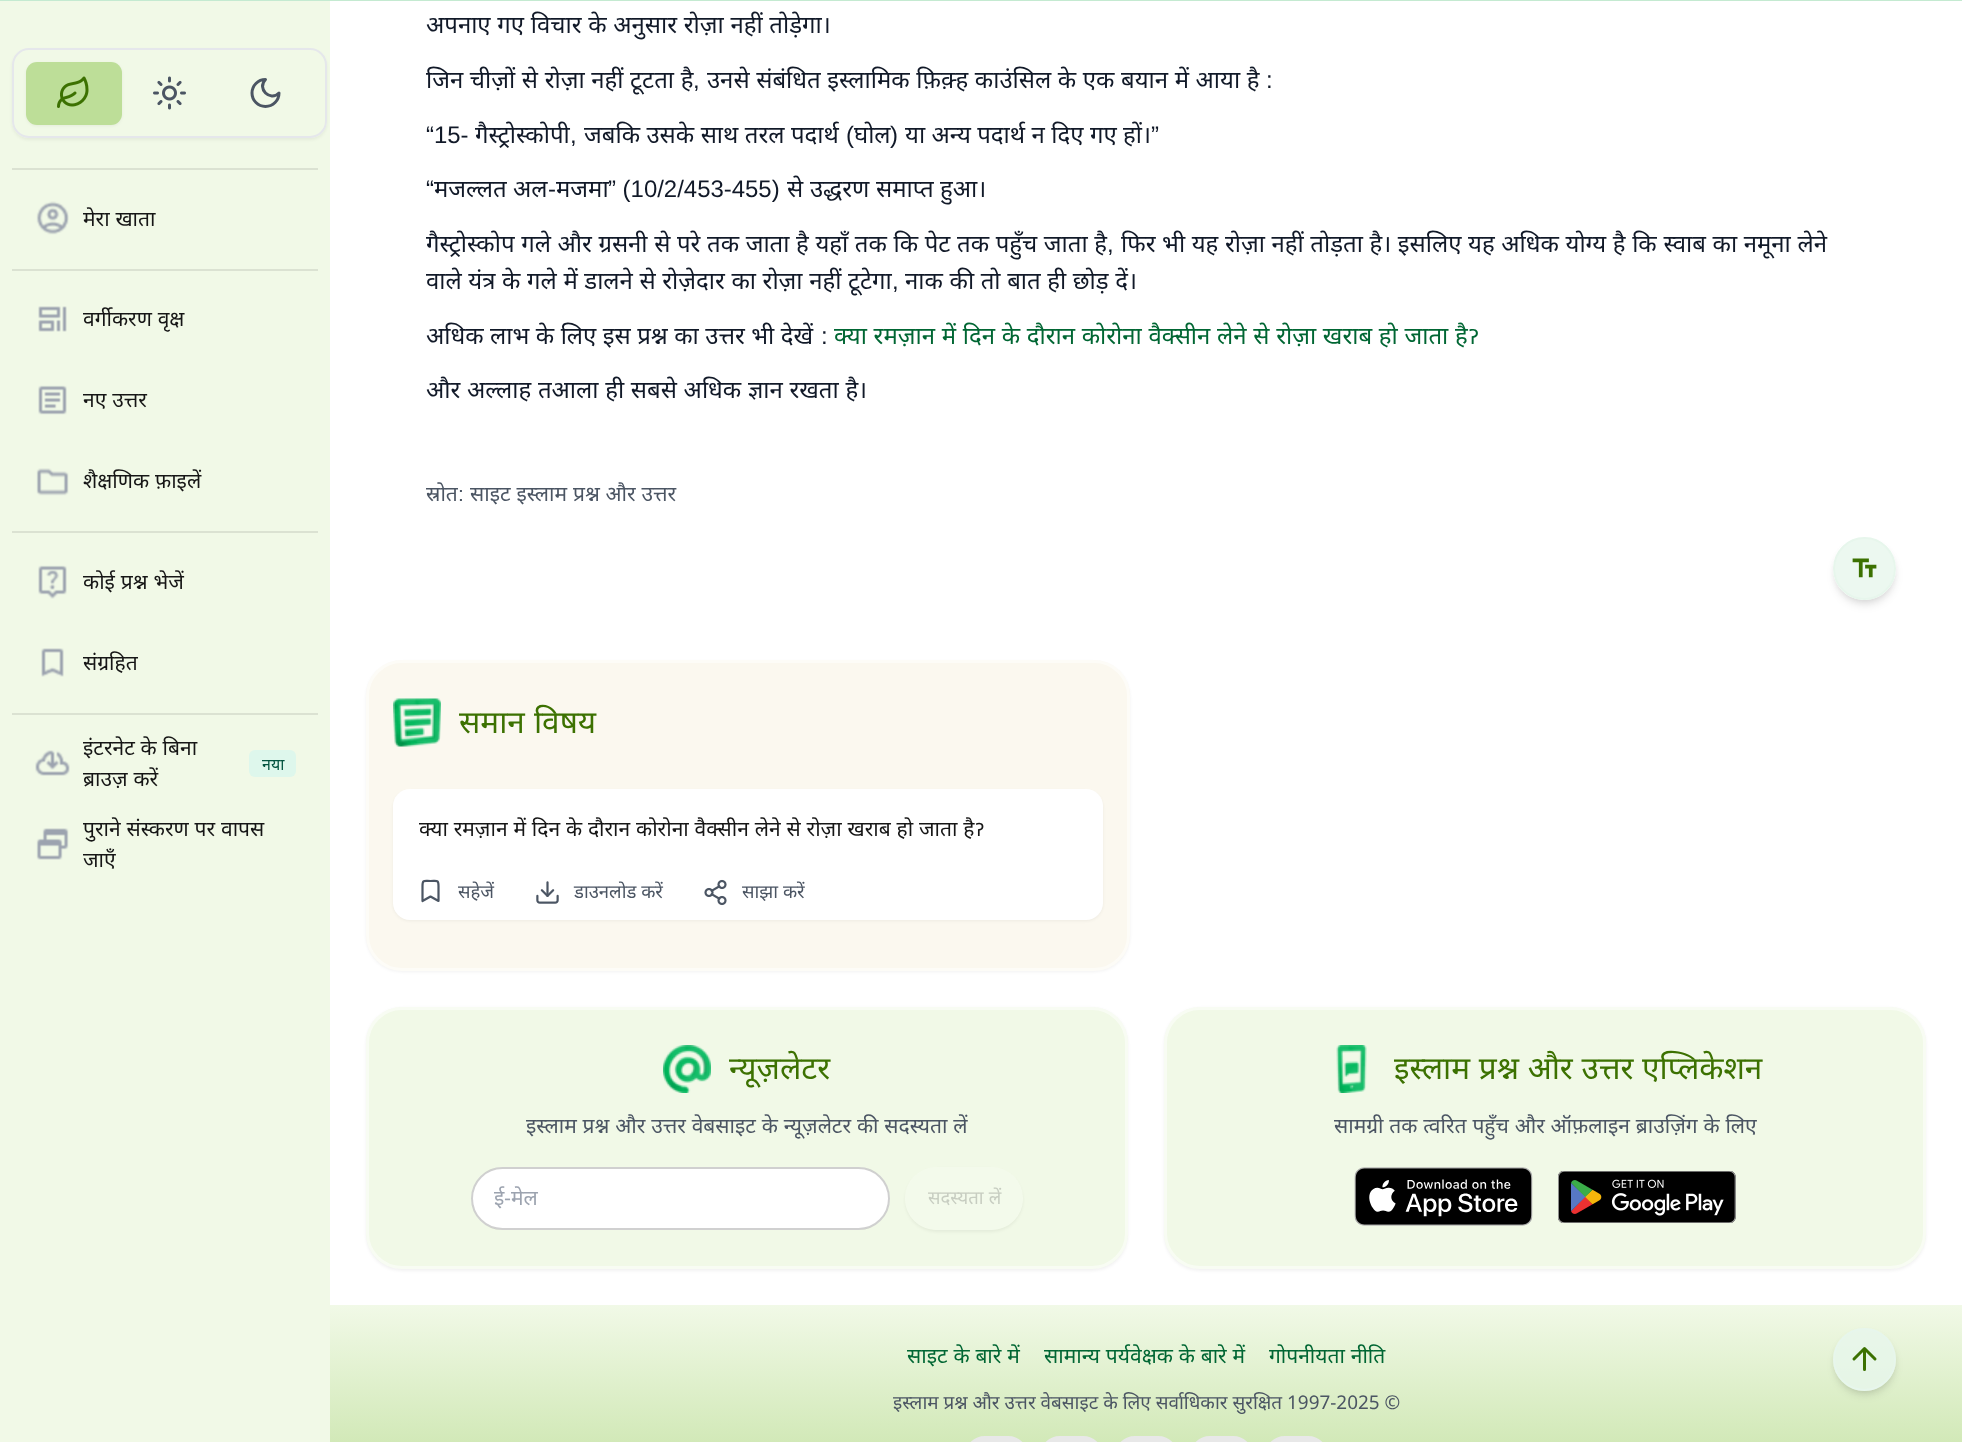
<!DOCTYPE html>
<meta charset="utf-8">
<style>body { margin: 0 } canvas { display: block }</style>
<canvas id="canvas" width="1962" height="1442"></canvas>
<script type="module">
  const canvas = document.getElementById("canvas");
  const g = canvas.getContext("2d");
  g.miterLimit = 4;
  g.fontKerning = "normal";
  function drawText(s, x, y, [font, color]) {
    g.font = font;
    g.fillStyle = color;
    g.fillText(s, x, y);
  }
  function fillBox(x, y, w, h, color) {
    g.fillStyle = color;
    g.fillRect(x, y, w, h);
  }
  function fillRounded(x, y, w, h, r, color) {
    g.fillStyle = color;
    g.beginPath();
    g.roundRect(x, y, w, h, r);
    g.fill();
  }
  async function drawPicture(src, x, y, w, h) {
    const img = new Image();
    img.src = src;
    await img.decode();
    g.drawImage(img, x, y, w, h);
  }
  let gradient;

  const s1 = ["21px Noto Sans", "#161616"];
  const s2 = ["16px Noto Sans", "#03543F"];
  const s3 = ["23.95px Noto Sans", "#111928"];
  const s4 = ["23.95px Liberation Sans", "#111928"];
  const s5 = ["23.95px Noto Sans", "#006633"];
  const s6 = ["21px Noto Sans", "#4B5563"];
  const s7 = ["21px Liberation Sans", "#4B5563"];
  const s8 = ["31.5px Noto Sans", "#3C7101"];
  const s9 = ["18.5px Noto Sans", "#4B5563"];
  const s10 = ["21px Noto Sans", "#9CA3AF"];
  const s11 = ["21px Liberation Sans", "#9CA3AF"];
  const s12 = ["18.5px Noto Sans", "#C7CDC1"];
  const s13 = ["21px Noto Sans", "#006633"];
  const s14 = ["18.9px Noto Sans", "#4B5563"];

  fillBox(0, 0, 1962, 1442, "#FFFFFF");
  fillBox(0, 0, 1962, 1, "#C4EAD1");
  fillBox(0, 1, 330, 1441, "#F1F9E7");
  g.save();
  g.beginPath();
  g.moveTo(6, 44);
  g.lineTo(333, 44);
  g.lineTo(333, 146);
  g.lineTo(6, 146);
  g.closePath();
  g.moveTo(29, 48);
  g.lineTo(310, 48);
  g.bezierCurveTo(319.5, 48, 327, 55.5, 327, 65);
  g.lineTo(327, 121);
  g.bezierCurveTo(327, 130.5, 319.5, 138, 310, 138);
  g.lineTo(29, 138);
  g.bezierCurveTo(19.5, 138, 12, 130.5, 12, 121);
  g.lineTo(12, 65);
  g.bezierCurveTo(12, 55.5, 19.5, 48, 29, 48);
  g.closePath();
  g.clip("evenodd");
  g.fillStyle = "rgba(0, 0, 0, 0.05)";
  g.filter = "blur(1.5px)";
  g.beginPath();
  g.roundRect(12, 50, 315, 90, 17);
  g.fill();
  g.filter = "none";
  g.restore();
  g.beginPath();
  g.roundRect(13, 49, 313, 88, 16);
  g.strokeStyle = "#E5E7EB";
  g.lineWidth = 2;
  g.stroke();
  g.fillStyle = "rgba(0, 0, 0, 0.05)";
  g.filter = "blur(1.5px)";
  g.beginPath();
  g.roundRect(26, 63, 96, 63, 11);
  g.fill();
  g.filter = "none";
  fillRounded(26, 62, 96, 63, 11, "#BDDE98");
  await drawPicture("pic1.png", 57, 76, 32, 32);
  await drawPicture("pic2.png", 153, 76, 33, 34);
  g.beginPath();
  g.moveTo(265.5, 79.5);
  g.bezierCurveTo(256.5, 88.5, 270, 102, 279, 93);
  g.bezierCurveTo(279, 100.5, 273, 106.5, 265.5, 106.5);
  g.bezierCurveTo(258, 106.5, 252, 100.5, 252, 93);
  g.bezierCurveTo(252, 85.5, 258, 79.5, 265.5, 79.5);
  g.closePath();
  g.strokeStyle = "#4B5563";
  g.lineWidth = 3;
  g.lineCap = "round";
  g.lineJoin = "round";
  g.stroke();
  fillBox(12, 168, 306, 2, "#DBE2D2");
  await drawPicture("pic3.png", 36, 201, 33, 34);
  g.wordSpacing = "0.4px";
  drawText("मेरा खाता", 83, 226, s1);
  fillBox(12, 269, 306, 2, "#DBE2D2");
  await drawPicture("pic4.png", 38, 306, 29, 26);
  drawText("वर्गीकरण वृक्ष", 83, 326, s1);
  await drawPicture("pic5.png", 38, 385, 29, 30);
  drawText("नए उत्तर", 83, 407, s1);
  await drawPicture("pic6.png", 36, 468, 33, 28);
  drawText("शैक्षणिक फ़ाइलें", 83, 488, s1);
  fillBox(12, 531, 306, 2, "#DBE2D2");
  await drawPicture("pic7.png", 38, 565, 29, 34);
  drawText("कोई प्रश्न भेजें", 83, 589, s1);
  await drawPicture("pic8.png", 41, 648, 23, 29);
  g.wordSpacing = "0px";
  drawText("संग्रहित", 83, 670, s1);
  fillBox(12, 713, 306, 2, "#DBE2D2");
  g.wordSpacing = "0.4px";
  drawText("इंटरनेट के बिना", 83, 755, s1);
  await drawPicture("pic9.png", 35, 750, 35, 26);
  fillRounded(249, 750, 47, 27, 6, "#DEF7EC");
  g.wordSpacing = "0px";
  drawText("नया", 262, 770, s2);
  g.wordSpacing = "0.4px";
  drawText("ब्राउज़ करें", 83, 786, s1);
  await drawPicture("pic10.png", 36, 828, 33, 32);
  drawText("पुराने संस्करण पर वापस", 83, 836, s1);
  g.wordSpacing = "0px";
  drawText("जाएँ", 83, 867, s1);
  g.wordSpacing = "0.5px";
  drawText("अपनाए गए विचार के अनुसार रोज़ा नहीं तोड़ेगा।", 426, 33, s3);
  g.wordSpacing = "0.4px";
  drawText("जिन चीज़ों से रोज़ा नहीं टूटता है", 426, 88, s3);
  g.wordSpacing = "0px";
  drawText(",", 693, 88, s4);
  g.wordSpacing = "0.4px";
  drawText("उनसे संबंधित इस्लामिक फ़िक़्ह काउंसिल के एक बयान में आया है", 707, 88, s3);
  g.wordSpacing = "0px";
  drawText(":", 1266, 88, s4);
  drawText("“15-", 426, 143, s4);
  drawText("गैस्ट्रोस्कोपी", 475, 143, s3);
  g.wordSpacing = "0.25px";
  drawText("जबकि उसके साथ तरल पदार्थ", 584, 143, s3);
  g.wordSpacing = "0px";
  drawText("(", 846, 143, s4);
  drawText("घोल", 854, 143, s3);
  g.wordSpacing = "0.25px";
  drawText("या अन्य पदार्थ न दिए गए हों।", 905, 143, s3);
  g.wordSpacing = "0px";
  drawText(")", 890, 143, s4);
  drawText("”", 1151, 143, s4);
  drawText(",", 570, 143, s4);
  drawText("“", 426, 197, s4);
  drawText("मजल्लत", 434, 197, s3);
  drawText("अल", 513, 197, s3);
  drawText("-", 548, 197, s4);
  drawText("मजमा", 556, 197, s3);
  drawText("” (10/2/453-455)", 608, 197, s4);
  drawText("से", 787, 197, s3);
  drawText("उद्धरण", 810, 197, s3);
  drawText("समाप्त", 876, 197, s3);
  drawText("हुआ।", 940, 197, s3);
  g.save();
  g.beginPath();
  g.rect(426, 0, 1440, 428);
  g.clip();
  g.wordSpacing = "0.4px";
  drawText("गैस्ट्रोस्कोप गले और ग्रसनी से परे तक जाता है यहाँ तक कि पेट तक पहुँच जाता है", 426, 252, s3);
  g.restore();
  drawText(",", 1107, 252, s4);
  g.wordSpacing = "0.4px";
  drawText("फिर भी यह रोज़ा नहीं तोड़ता है। इसलिए यह अधिक योग्य है कि स्वाब का नमूना लेने", 1121, 252, s3);
  drawText("वाले यंत्र के गले में डालने से रोज़ेदार का रोज़ा नहीं टूटेगा", 426, 289, s3);
  g.wordSpacing = "0px";
  drawText(",", 892, 289, s4);
  g.wordSpacing = "0.4px";
  drawText("नाक की तो बात ही छोड़ दें।", 905, 289, s3);
  g.wordSpacing = "0.25px";
  drawText("अधिक लाभ के लिए इस प्रश्न का उत्तर भी देखें", 426, 344, s3);
  g.wordSpacing = "0px";
  drawText(":", 821, 344, s4);
  g.wordSpacing = "0.5px";
  drawText("क्या रमज़ान में दिन के दौरान कोरोना वैक्सीन लेने से रोज़ा खराब हो जाता हैॽ", 834, 344, s5);
  drawText("और अल्लाह तआला ही सबसे अधिक ज्ञान रखता है।", 426, 398, s3);
  g.wordSpacing = "0px";
  drawText("स्रोत", 426, 501, s6);
  drawText(":", 458, 501, s7);
  g.wordSpacing = "0.4px";
  drawText("साइट इस्लाम प्रश्न और उत्तर", 470, 501, s6);
  g.save();
  g.beginPath();
  g.moveTo(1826, 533);
  g.lineTo(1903, 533);
  g.lineTo(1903, 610);
  g.lineTo(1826, 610);
  g.closePath();
  g.moveTo(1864.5, 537);
  g.bezierCurveTo(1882, 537, 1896, 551, 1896, 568.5);
  g.bezierCurveTo(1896, 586, 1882, 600, 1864.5, 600);
  g.bezierCurveTo(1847, 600, 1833, 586, 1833, 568.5);
  g.bezierCurveTo(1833, 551, 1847, 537, 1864.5, 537);
  g.closePath();
  g.clip("evenodd");
  g.fillStyle = "rgba(0, 0, 0, 0.1)";
  g.filter = "blur(3px)";
  g.beginPath();
  g.roundRect(1836, 543, 57, 57, 28.5);
  g.fill();
  g.filter = "none";
  g.restore();
  g.save();
  g.beginPath();
  g.moveTo(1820, 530);
  g.lineTo(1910, 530);
  g.lineTo(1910, 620);
  g.lineTo(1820, 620);
  g.closePath();
  g.moveTo(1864.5, 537);
  g.bezierCurveTo(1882, 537, 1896, 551, 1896, 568.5);
  g.bezierCurveTo(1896, 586, 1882, 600, 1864.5, 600);
  g.bezierCurveTo(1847, 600, 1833, 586, 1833, 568.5);
  g.bezierCurveTo(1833, 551, 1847, 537, 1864.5, 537);
  g.closePath();
  g.clip("evenodd");
  g.fillStyle = "rgba(0, 0, 0, 0.1)";
  g.filter = "blur(4.5px)";
  g.beginPath();
  g.roundRect(1835, 545, 60, 60, 30);
  g.fill();
  g.filter = "none";
  g.restore();
  g.fillStyle = "rgba(231, 246, 236, 0.8)";
  g.beginPath();
  g.arc(1864.5, 568.5, 30.5, 0, Math.PI * 2);
  g.fill();
  g.strokeStyle = "#E7F6EC";
  g.lineWidth = 2;
  g.stroke();
  await drawPicture("pic11.png", 1852, 558, 25, 20);
  g.fillStyle = "rgba(0, 0, 0, 0.05)";
  g.filter = "blur(1.5px)";
  g.beginPath();
  g.roundRect(366, 662, 764, 310, 36);
  g.fill();
  g.filter = "none";
  fillRounded(366, 660, 764, 311, 36, "#FBF8EF");
  g.beginPath();
  g.roundRect(367.5, 661.5, 761, 308, 34.5);
  g.strokeStyle = "rgba(255, 255, 255, 0.5)";
  g.lineWidth = 3;
  g.lineJoin = "miter";
  g.stroke();
  await drawPicture("pic12.png", 393, 698, 48, 49);
  g.wordSpacing = "1px";
  drawText("समान विषय", 459, 733, s8);
  g.fillStyle = "rgba(0, 0, 0, 0.05)";
  g.filter = "blur(1.5px)";
  g.beginPath();
  g.roundRect(393, 791, 710, 130, 17);
  g.fill();
  g.filter = "none";
  fillRounded(393, 789, 710, 131, 17, "#FFFFFF");
  g.wordSpacing = "0.4px";
  drawText("क्या रमज़ान में दिन के दौरान कोरोना वैक्सीन लेने से रोज़ा खराब हो जाता हैॽ", 419, 836, s1);
  g.beginPath();
  g.moveTo(438.5, 901);
  g.lineTo(430.5, 896.5);
  g.lineTo(422.5, 901);
  g.lineTo(422.5, 886);
  g.bezierCurveTo(422.5, 879.5, 424, 881, 430.5, 881);
  g.bezierCurveTo(437, 881, 438.5, 879.5, 438.5, 886);
  g.closePath();
  g.strokeStyle = "#4B5563";
  g.lineWidth = 2.2;
  g.lineJoin = "round";
  g.stroke();
  g.wordSpacing = "0px";
  drawText("सहेजें", 458, 898, s9);
  await drawPicture("pic13.png", 536, 881, 23, 23);
  drawText("डाउनलोड करें", 574, 898, s9);
  await drawPicture("pic14.png", 704, 879, 23, 27);
  drawText("साझा करें", 742, 898, s9);
  g.fillStyle = "rgba(0, 0, 0, 0.05)";
  g.filter = "blur(1.5px)";
  g.beginPath();
  g.roundRect(366, 1008, 762, 263, 36);
  g.fill();
  g.filter = "none";
  fillRounded(366, 1007, 762, 262, 36, "#F1F9E7");
  g.beginPath();
  g.roundRect(367.5, 1008.5, 759, 259, 34.5);
  g.strokeStyle = "rgba(255, 255, 255, 0.5)";
  g.lineWidth = 3;
  g.lineJoin = "miter";
  g.stroke();
  await drawPicture("pic15.png", 663, 1045, 48, 48);
  drawText("न्यूज़लेटर", 729, 1079, s8);
  g.wordSpacing = "0.4px";
  drawText("इस्लाम प्रश्न और उत्तर वेबसाइट के न्यूज़लेटर की सदस्यता लें", 526, 1133, s6);
  fillRounded(471, 1167, 419, 63, 31.5, "#FFFFFF");
  g.beginPath();
  g.roundRect(472, 1168, 417, 61, 30.5);
  g.strokeStyle = "rgba(22, 22, 22, 0.2)";
  g.lineWidth = 2;
  g.stroke();
  g.save();
  g.beginPath();
  g.rect(494, 1182, 373, 29);
  g.clip();
  g.wordSpacing = "0px";
  drawText("ई", 494, 1205, s10);
  g.restore();
  g.wordSpacing = "0px";
  drawText("-", 504, 1205, s11);
  drawText("मेल", 511, 1205, s10);
  g.save();
  g.beginPath();
  g.moveTo(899, 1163);
  g.lineTo(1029, 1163);
  g.lineTo(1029, 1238);
  g.lineTo(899, 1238);
  g.closePath();
  g.moveTo(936.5, 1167);
  g.lineTo(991.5, 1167);
  g.bezierCurveTo(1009, 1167, 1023, 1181, 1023, 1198.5);
  g.bezierCurveTo(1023, 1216, 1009, 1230, 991.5, 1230);
  g.lineTo(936.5, 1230);
  g.bezierCurveTo(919, 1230, 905, 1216, 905, 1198.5);
  g.bezierCurveTo(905, 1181, 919, 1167, 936.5, 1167);
  g.closePath();
  g.clip("evenodd");
  g.fillStyle = "rgba(0, 0, 0, 0.05)";
  g.filter = "blur(1.5px)";
  g.beginPath();
  g.roundRect(905, 1169, 118, 63, 31.5);
  g.fill();
  g.filter = "none";
  g.restore();
  fillRounded(905, 1167, 118, 63, 31.5, "rgba(255, 255, 255, 0.2)");
  g.wordSpacing = "0.25px";
  drawText("सदस्यता लें", 928, 1204, s12);
  g.fillStyle = "rgba(0, 0, 0, 0.05)";
  g.filter = "blur(1.5px)";
  g.beginPath();
  g.roundRect(1164, 1008, 762, 263, 36);
  g.fill();
  g.filter = "none";
  fillRounded(1164, 1007, 762, 262, 36, "#F1F9E7");
  g.beginPath();
  g.roundRect(1165.5, 1008.5, 759, 259, 34.5);
  g.strokeStyle = "rgba(255, 255, 255, 0.5)";
  g.lineWidth = 3;
  g.stroke();
  await drawPicture("pic16.png", 1336, 1045, 31, 48);
  g.wordSpacing = "0.5px";
  drawText("इस्लाम प्रश्न और उत्तर एप्लिकेशन", 1394, 1079, s8);
  g.wordSpacing = "0.4px";
  drawText("सामग्री तक त्वरित पहुँच और ऑफ़लाइन ब्राउज़िंग के लिए", 1334, 1133, s6);
  await drawPicture("pic17.png", 1354, 1167, 179, 59);
  await drawPicture("pic18.png", 1558, 1171, 178, 52);
  gradient = g.createLinearGradient(1146, 1305, 1146, 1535);
  gradient.addColorStop(0, "#F1F9E7");
  gradient.addColorStop(1, "#BDDE98");
  g.fillStyle = gradient;
  g.fillRect(330, 1305, 1632, 137);
  drawText("साइट के बारे में", 907, 1363, s13);
  drawText("सामान्य पर्यवेक्षक के बारे में", 1044, 1363, s13);
  drawText("गोपनीयता नीति", 1269, 1363, s13);
  g.wordSpacing = "0px";
  drawText("इस्लाम प्रश्न और उत्तर वेबसाइट के लिए सर्वाधिकार सुरक्षित 1997-2025 ©", 893, 1409, s14);
  g.fillStyle = "#E8E8E8";
  g.beginPath();
  g.roundRect(966, 1437, 61, 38, 30.5);
  g.fill();
  g.strokeStyle = "#E8E8E8";
  g.lineWidth = 2;
  g.stroke();
  g.beginPath();
  g.roundRect(1041, 1437, 61, 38, 30.5);
  g.fill();
  g.stroke();
  g.beginPath();
  g.roundRect(1116, 1437, 61, 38, 30.5);
  g.fill();
  g.stroke();
  g.beginPath();
  g.roundRect(1191, 1437, 61, 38, 30.5);
  g.fill();
  g.stroke();
  g.beginPath();
  g.roundRect(1266, 1437, 61, 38, 30.5);
  g.fill();
  g.stroke();
  g.save();
  g.beginPath();
  g.moveTo(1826, 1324);
  g.lineTo(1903, 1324);
  g.lineTo(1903, 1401);
  g.lineTo(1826, 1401);
  g.closePath();
  g.moveTo(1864.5, 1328);
  g.bezierCurveTo(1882, 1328, 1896, 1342, 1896, 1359.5);
  g.bezierCurveTo(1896, 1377, 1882, 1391, 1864.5, 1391);
  g.bezierCurveTo(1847, 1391, 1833, 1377, 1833, 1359.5);
  g.bezierCurveTo(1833, 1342, 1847, 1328, 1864.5, 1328);
  g.closePath();
  g.clip("evenodd");
  g.fillStyle = "rgba(0, 0, 0, 0.1)";
  g.filter = "blur(3px)";
  g.beginPath();
  g.roundRect(1836, 1334, 57, 57, 28.5);
  g.fill();
  g.filter = "none";
  g.restore();
  g.save();
  g.beginPath();
  g.moveTo(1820, 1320);
  g.lineTo(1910, 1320);
  g.lineTo(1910, 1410);
  g.lineTo(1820, 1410);
  g.closePath();
  g.moveTo(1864.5, 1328);
  g.bezierCurveTo(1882, 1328, 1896, 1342, 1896, 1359.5);
  g.bezierCurveTo(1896, 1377, 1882, 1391, 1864.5, 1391);
  g.bezierCurveTo(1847, 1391, 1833, 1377, 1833, 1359.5);
  g.bezierCurveTo(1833, 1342, 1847, 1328, 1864.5, 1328);
  g.closePath();
  g.clip("evenodd");
  g.fillStyle = "rgba(0, 0, 0, 0.1)";
  g.filter = "blur(4.5px)";
  g.beginPath();
  g.roundRect(1835, 1335, 60, 60, 30);
  g.fill();
  g.filter = "none";
  g.restore();
  g.fillStyle = "rgba(231, 246, 236, 0.8)";
  g.beginPath();
  g.arc(1864.5, 1359.5, 30.5, 0, Math.PI * 2);
  g.fill();
  g.strokeStyle = "#E7F6EC";
  g.stroke();
  g.beginPath();
  g.moveTo(1854, 1359);
  g.lineTo(1864.5, 1348.5);
  g.lineTo(1875, 1359);
  g.moveTo(1864.5, 1369.5);
  g.lineTo(1864.5, 1348.5);
  g.strokeStyle = "#3C7101";
  g.lineWidth = 3;
  g.lineJoin = "round";
  g.stroke();
</script>
